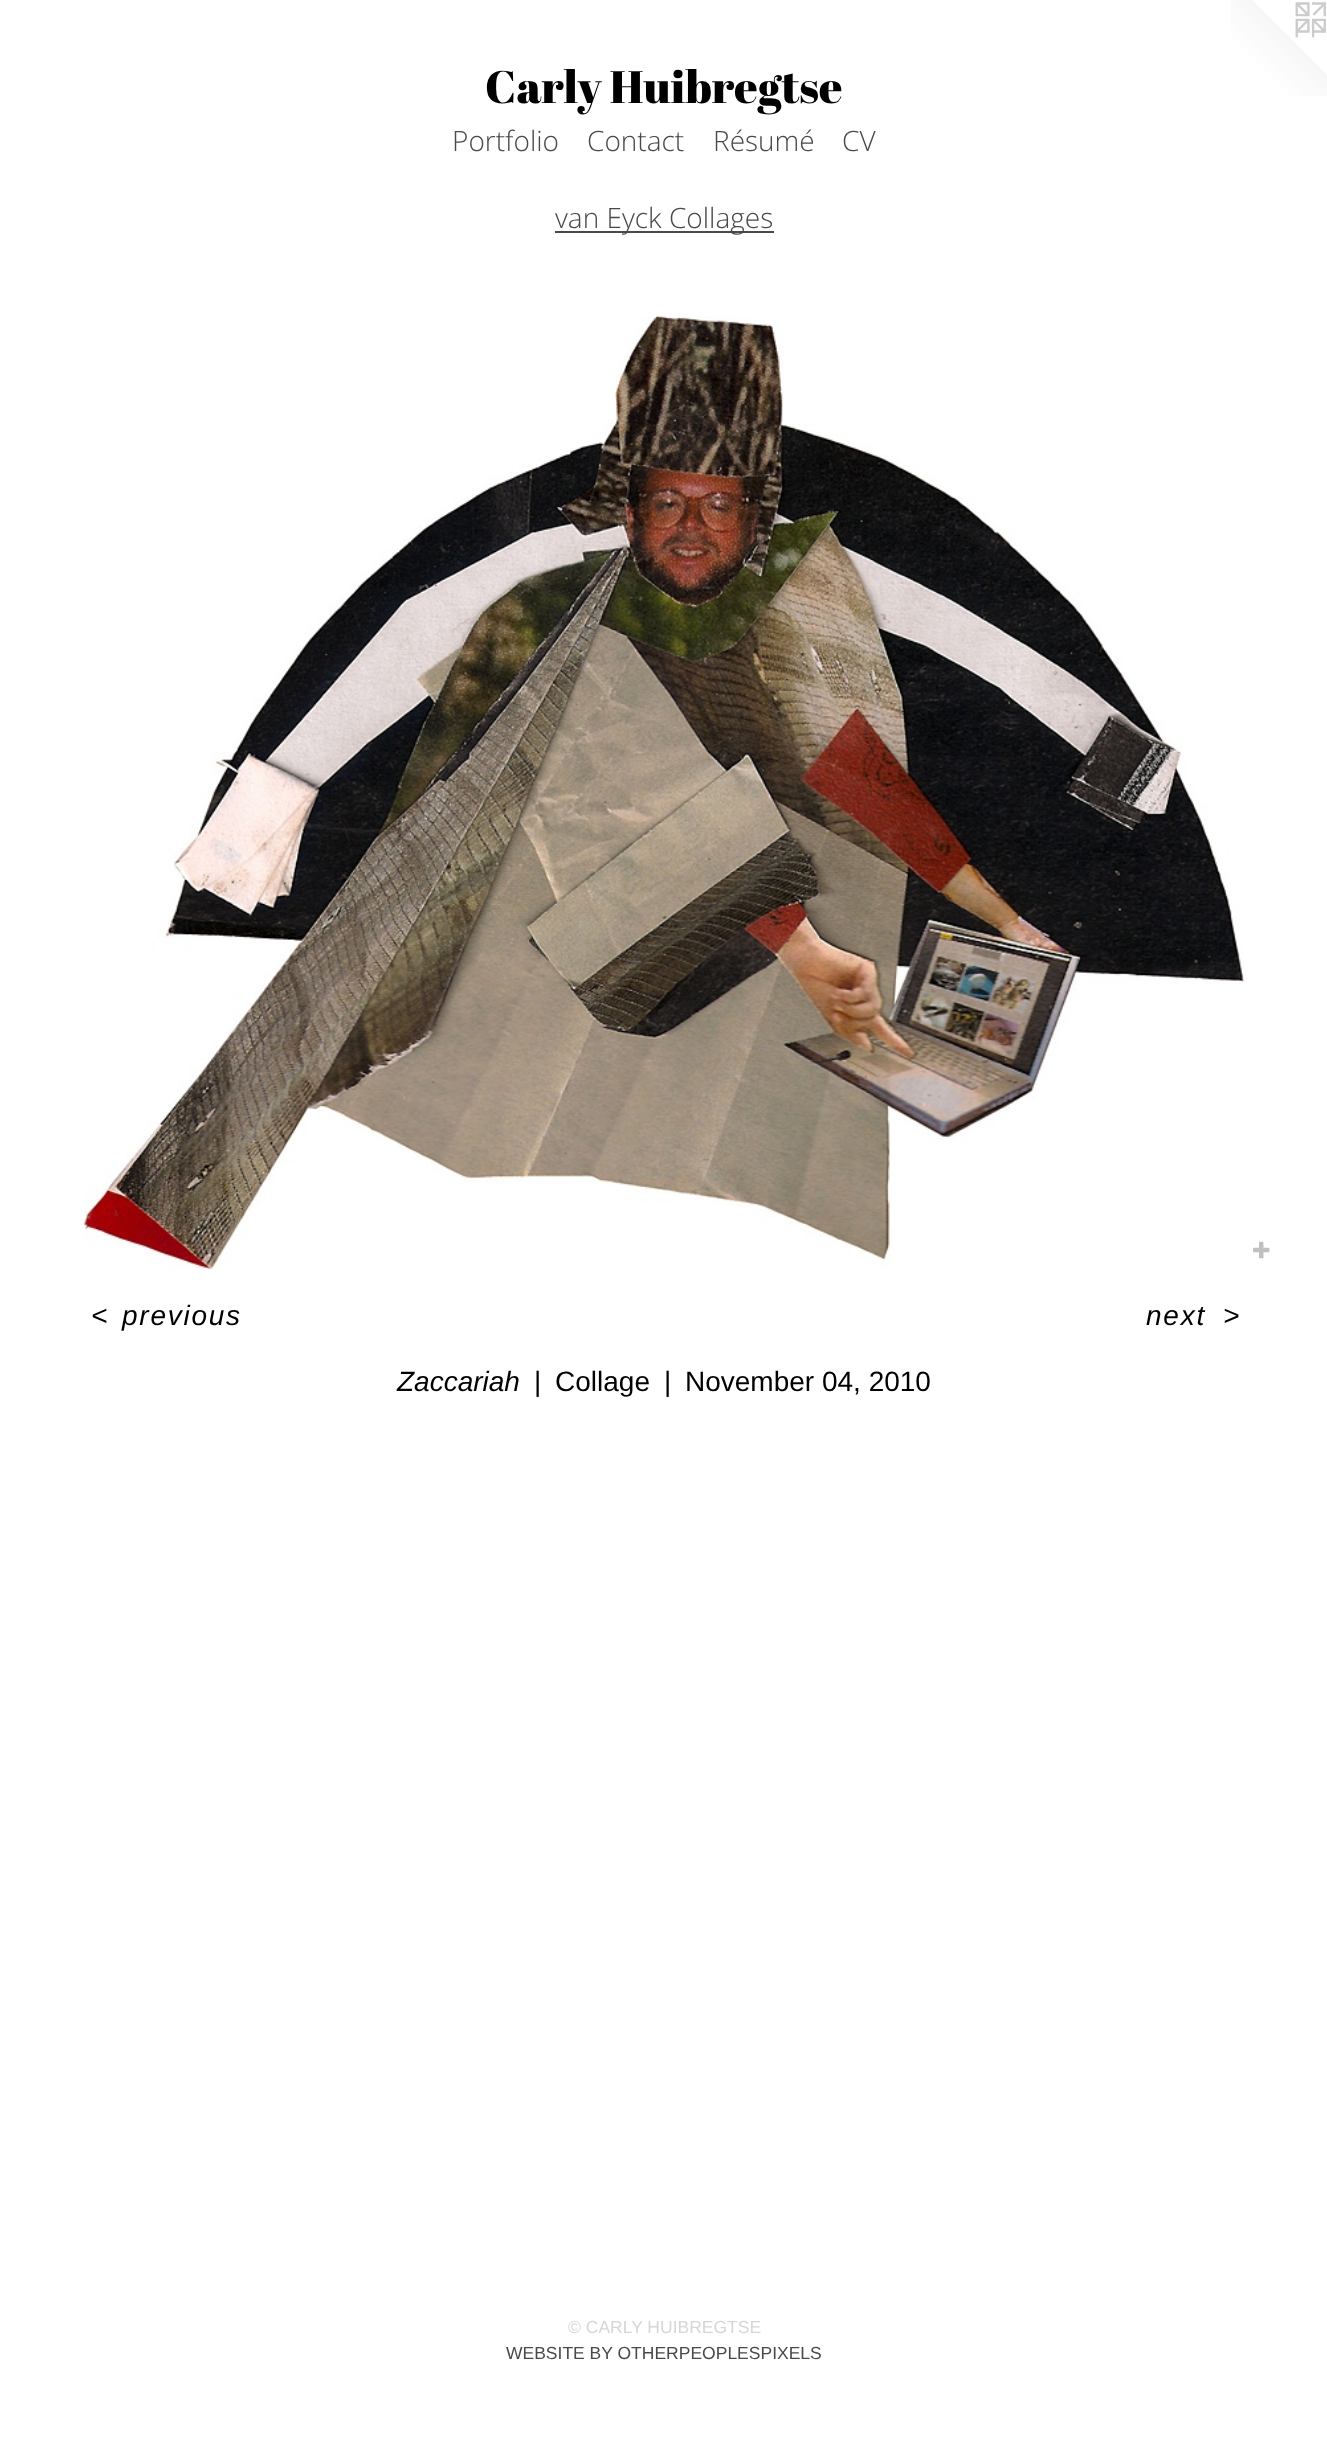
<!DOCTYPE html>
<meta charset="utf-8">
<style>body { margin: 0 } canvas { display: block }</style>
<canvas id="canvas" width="1327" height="2459"></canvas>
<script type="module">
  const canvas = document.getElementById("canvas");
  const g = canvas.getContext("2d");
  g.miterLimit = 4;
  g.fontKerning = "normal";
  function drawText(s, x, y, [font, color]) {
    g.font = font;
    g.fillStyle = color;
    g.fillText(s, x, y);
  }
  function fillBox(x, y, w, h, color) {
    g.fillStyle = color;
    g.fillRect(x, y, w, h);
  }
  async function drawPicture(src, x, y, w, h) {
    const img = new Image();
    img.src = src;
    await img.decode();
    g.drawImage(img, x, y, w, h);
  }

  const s1 = ["45.5px Abril Fatface", "#000000"];
  const s2 = ["300 28px Open Sans", "#49484B"];
  const s3 = ["italic 28px Liberation Sans", "#000000"];
  const s4 = ["28px Liberation Sans", "#000000"];
  const s5 = ["17.5px Liberation Sans", "#D6D6D6"];
  const s6 = ["17.5px Liberation Sans", "#49484B"];

  fillBox(0, 0, 1327, 2459, "#FFFFFF");
  drawText("Carly Huibregtse", 485, 103, s1);
  await drawPicture("pic1.png", 1231, 0, 96, 96);
  drawText("Portfolio", 452, 151, s2);
  drawText("Contact", 587, 151, s2);
  drawText("Résumé", 713, 151, s2);
  drawText("CV", 842, 151, s2);
  fillBox(555, 231, 219, 2, "#4B4848");
  drawText("van Eyck Collages", 555, 228, s2);
  await drawPicture("pic2.png", 84, 316, 1161, 953);
  await drawPicture("pic3.png", 1253, 1241, 17, 18);
  g.letterSpacing = "1.75px";
  drawText("<", 91, 1325, s3);
  drawText("previous", 122, 1325, s3);
  drawText("next", 1146, 1325, s3);
  drawText(">", 1223, 1325, s3);
  g.letterSpacing = "0px";
  drawText("Zaccariah", 397, 1391, s3);
  drawText("|", 534, 1391, s4);
  drawText("Collage", 555, 1391, s4);
  drawText("|", 664, 1391, s4);
  drawText("November 04, 2010", 685, 1391, s4);
  drawText("© CARLY HUIBREGTSE", 568, 2333, s5);
  drawText("WEBSITE BY OTHERPEOPLESPIXELS", 506, 2359, s6);
</script>
